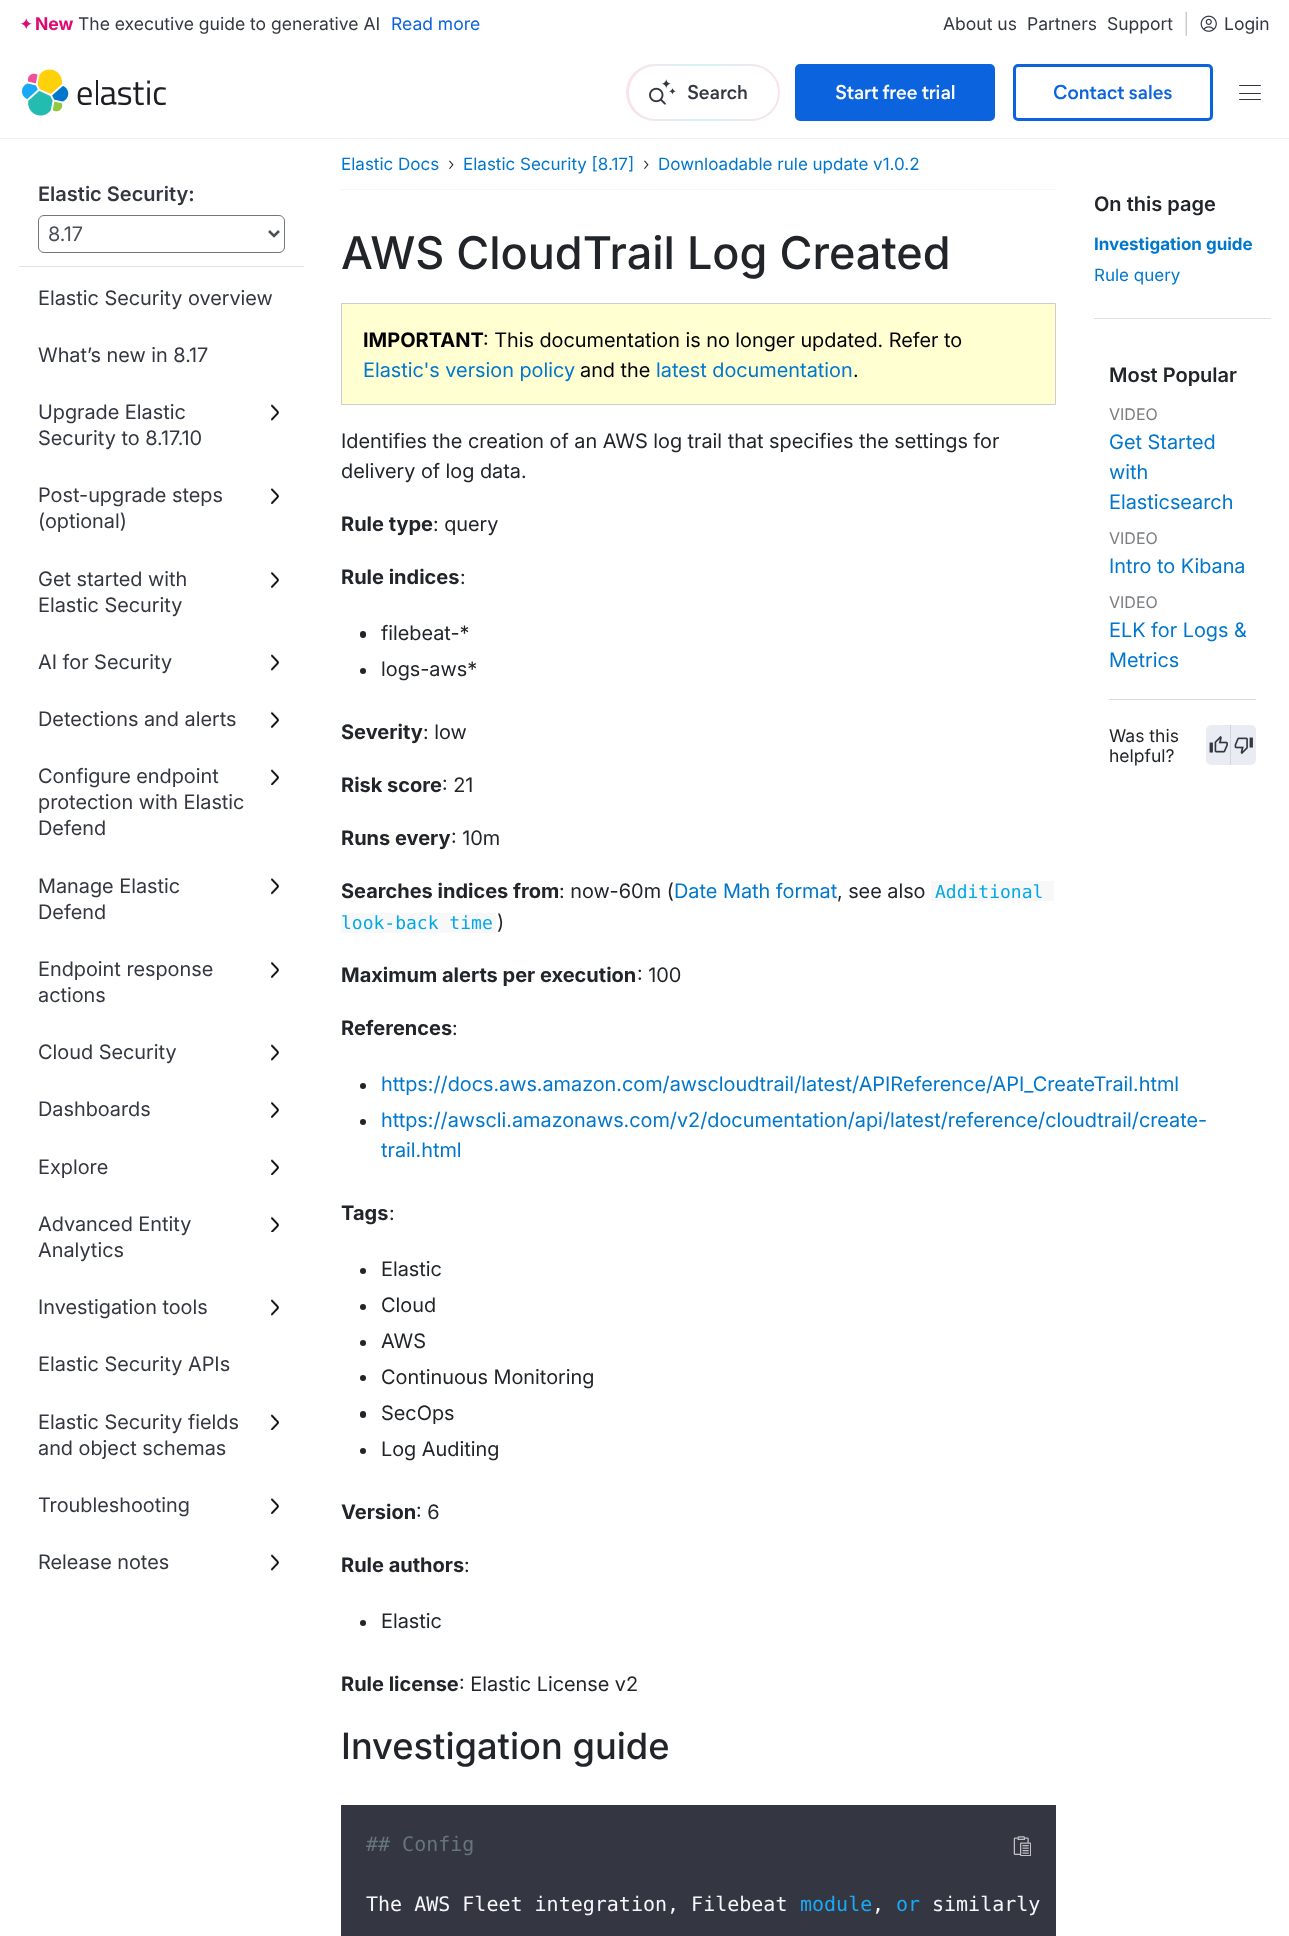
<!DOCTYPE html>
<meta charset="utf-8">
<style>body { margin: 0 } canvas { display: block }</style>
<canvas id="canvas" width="1289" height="1936"></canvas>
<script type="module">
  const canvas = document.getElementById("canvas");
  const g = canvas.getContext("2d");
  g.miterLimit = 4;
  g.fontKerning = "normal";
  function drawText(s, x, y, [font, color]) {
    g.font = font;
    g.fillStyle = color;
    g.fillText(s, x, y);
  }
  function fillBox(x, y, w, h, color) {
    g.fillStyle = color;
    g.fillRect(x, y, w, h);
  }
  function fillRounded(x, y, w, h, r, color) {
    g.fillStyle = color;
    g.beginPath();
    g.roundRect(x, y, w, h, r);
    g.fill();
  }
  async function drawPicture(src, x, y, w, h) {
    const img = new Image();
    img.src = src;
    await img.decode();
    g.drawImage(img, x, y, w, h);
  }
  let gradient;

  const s1 = ["bold 17.5px Inter", "#DD0A73"];
  const s2 = ["17.5px 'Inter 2'", "#343741"];
  const s3 = ["17.5px 'Inter 2'", "#0B64DD"];
  const s4 = ["20px Inter", "#CCCCCC"];
  const s5 = ["600 20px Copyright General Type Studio", "#343741"];
  const s6 = ["600 20px Copyright General Type Studio", "#FFFFFF"];
  const s7 = ["600 20px Copyright General Type Studio", "#0B64DD"];
  const s8 = ["600 20px Inter", "#343741"];
  const s9 = ["20px Inter", "#495057"];
  const s10 = ["20px Inter", "#343741"];
  const s11 = ["17px 'Inter 2'", "#0077CC"];
  const s12 = ["300 17.5px Inter", "#212529"];
  const s13 = ["500 45px Inter", "#212529"];
  const s14 = ["bold 20px Inter", "#000000"];
  const s15 = ["20px Inter", "#000000"];
  const s16 = ["20px Inter", "#0077CC"];
  const s17 = ["20px Inter", "#212529"];
  const s18 = ["bold 20px Inter", "#212529"];
  const s19 = ["18px DejaVu Sans Mono", "#00A9E5"];
  const s20 = ["500 36.25px Inter", "#212529"];
  const s21 = ["20px DejaVu Sans Mono", "#66747B"];
  const s22 = ["20px DejaVu Sans Mono", "#F5F7FA"];
  const s23 = ["20px DejaVu Sans Mono", "#1BA9F5"];
  const s24 = ["600 20px Inter", "#212529"];
  const s25 = ["bold 17px Inter", "#0077CC"];
  const s26 = ["16px 'Inter 2'", "#7A7C7F"];
  const s27 = ["17.5px 'Inter 2'", "#212529"];

  fillBox(0, 0, 1289, 1936, "#FFFFFF");
  fillBox(0, 138, 1289, 1, "#EEEFF1");
  await drawPicture("pic1.png", 20, 18, 13, 12);
  drawText("New", 35, 30, s1);
  drawText("The executive guide to generative AI", 78, 30, s2);
  drawText("Read more", 391, 30, s3);
  drawText("About us", 943, 30, s2);
  drawText("Partners", 1027, 30, s2);
  drawText("Support", 1107, 30, s2);
  drawText("|", 1183, 31, s4);
  await drawPicture("pic2.png", 1200, 15, 17, 17);
  drawText("Login", 1224, 30, s2);
  await drawPicture("pic3.png", 21, 69, 145, 47);
  gradient = g.createLinearGradient(626, 93, 934, 92);
  gradient.addColorStop(0, "#FCE1ED");
  gradient.addColorStop(0.25, "#D4F4F3");
  gradient.addColorStop(0.5, "#FCE1ED");
  gradient.addColorStop(0.75, "#D4F4F3");
  gradient.addColorStop(1, "#FCE1ED");
  g.fillStyle = gradient;
  g.beginPath();
  g.roundRect(626, 64, 154, 57, 28.5);
  g.fill();
  fillRounded(629, 66, 149, 53, 26.5, "#FFFFFF");
  await drawPicture("pic4.png", 649, 79, 27, 26);
  drawText("Search", 687, 99, s5);
  g.fillStyle = "#0B64DD";
  g.beginPath();
  g.roundRect(796.5, 65.5, 197, 54, 3.5);
  g.fill();
  g.strokeStyle = "#0B64DD";
  g.lineWidth = 3;
  g.stroke();
  drawText("Start free trial", 835, 99, s6);
  g.beginPath();
  g.roundRect(1014.5, 65.5, 197, 54, 3.5);
  g.stroke();
  drawText("Contact sales", 1053, 99, s7);
  fillRounded(1239, 85, 22, 1, 0.5, "#343741");
  fillRounded(1239, 93, 22, 1, 0.5, "#343741");
  fillRounded(1239, 99, 22, 1, 0.5, "#343741");
  fillBox(19, 266, 285, 1, "#DEE2E6");
  drawText("Elastic Security:", 38, 201, s8);
  g.beginPath();
  g.roundRect(38.5, 215.5, 246, 37, 5.5);
  g.strokeStyle = "#767676";
  g.lineWidth = 1;
  g.stroke();
  g.beginPath();
  g.moveTo(269, 231);
  g.lineTo(274, 236);
  g.lineTo(279, 231);
  g.strokeStyle = "#495057";
  g.lineWidth = 2.5;
  g.stroke();
  drawText("8.17", 48, 241, s9);
  drawText("Elastic Security overview", 38, 305, s10);
  drawText("What’s new in 8.17", 38, 362, s10);
  drawText("Upgrade Elastic", 38, 419, s10);
  drawText("Security to 8.17.10", 38, 445, s10);
  await drawPicture("pic5.png", 271, 404, 8, 17);
  drawText("Post-upgrade steps", 38, 502, s10);
  drawText("(optional)", 38, 528, s10);
  await drawPicture("pic6.png", 271, 487, 8, 17);
  drawText("Get started with", 38, 586, s10);
  drawText("Elastic Security", 38, 612, s10);
  await drawPicture("pic7.png", 271, 571, 8, 17);
  drawText("AI for Security", 38, 669, s10);
  await drawPicture("pic5.png", 271, 654, 8, 17);
  drawText("Detections and alerts", 38, 726, s10);
  await drawPicture("pic7.png", 271, 711, 8, 17);
  drawText("Configure endpoint", 38, 783, s10);
  drawText("protection with Elastic", 38, 809, s10);
  drawText("Defend", 38, 835, s10);
  await drawPicture("pic8.png", 271, 769, 8, 16);
  drawText("Manage Elastic", 38, 893, s10);
  drawText("Defend", 38, 919, s10);
  await drawPicture("pic9.png", 271, 877, 8, 18);
  drawText("Endpoint response", 38, 976, s10);
  drawText("actions", 38, 1002, s10);
  await drawPicture("pic7.png", 271, 961, 8, 17);
  drawText("Cloud Security", 38, 1059, s10);
  await drawPicture("pic5.png", 271, 1044, 8, 17);
  drawText("Dashboards", 38, 1116, s10);
  await drawPicture("pic7.png", 271, 1101, 8, 17);
  drawText("Explore", 38, 1174, s10);
  await drawPicture("pic8.png", 271, 1159, 8, 16);
  drawText("Advanced Entity", 38, 1231, s10);
  drawText("Analytics", 38, 1257, s10);
  await drawPicture("pic10.png", 271, 1216, 8, 16);
  drawText("Investigation tools", 38, 1314, s10);
  await drawPicture("pic5.png", 271, 1299, 8, 17);
  drawText("Elastic Security APIs", 38, 1371, s10);
  drawText("Elastic Security fields", 38, 1429, s10);
  drawText("and object schemas", 38, 1455, s10);
  await drawPicture("pic11.png", 270, 1414, 9, 16);
  drawText("Troubleshooting", 38, 1512, s10);
  await drawPicture("pic6.png", 271, 1497, 8, 17);
  drawText("Release notes", 38, 1569, s10);
  await drawPicture("pic5.png", 271, 1554, 8, 17);
  g.beginPath();
  g.moveTo(341, 189.5);
  g.lineTo(1056, 189.5);
  g.strokeStyle = "#ECECEC";
  g.lineWidth = 1.2;
  g.setLineDash([1.25, 1.25]);
  g.stroke();
  drawText("Elastic Docs", 341, 170, s11);
  drawText("›", 448, 170, s12);
  drawText("Elastic Security [8.17]", 463, 170, s11);
  drawText("›", 643, 170, s12);
  drawText("Downloadable rule update v1.0.2", 658, 170, s11);
  drawText("AWS CloudTrail Log Created", 341, 269, s13);
  g.fillStyle = "#FFFFD2";
  g.beginPath();
  g.rect(341.5, 303.5, 714, 101);
  g.fill();
  g.strokeStyle = "#CCCCCC";
  g.lineWidth = 1;
  g.setLineDash([]);
  g.stroke();
  drawText("IMPORTANT", 363, 347, s14);
  drawText(": This documentation is no longer updated. Refer to", 483, 347, s15);
  drawText("Elastic's version policy", 363, 377, s16);
  drawText("and the", 580, 377, s15);
  drawText("latest documentation", 656, 377, s16);
  drawText(".", 853, 377, s15);
  drawText("Identifies the creation of an AWS log trail that specifies the settings for", 341, 448, s17);
  drawText("delivery of log data.", 341, 478, s17);
  drawText("Rule type", 341, 531, s18);
  drawText(": query", 433, 531, s17);
  drawText("Rule indices", 341, 584, s18);
  drawText(":", 460, 584, s17);
  fillRounded(360, 631, 6, 7, 3, "#212529");
  drawText("filebeat-*", 381, 640, s17);
  g.beginPath();
  g.arc(363, 671, 3, 0, Math.PI * 2);
  g.fill();
  drawText("logs-aws*", 381, 676, s17);
  drawText("Severity", 341, 739, s18);
  drawText(": low", 423, 739, s17);
  drawText("Risk score", 341, 792, s18);
  drawText(": 21", 442, 792, s17);
  drawText("Runs every", 341, 845, s18);
  drawText(": 10m", 451, 845, s17);
  drawText("Searches indices from", 341, 898, s18);
  drawText(": now-60m (", 559, 898, s17);
  drawText("Date Math format", 674, 898, s16);
  drawText(", see also", 837, 898, s17);
  fillBox(931, 881, 123, 20, "#F8F8F8");
  drawText("Additional", 935, 898, s19);
  fillBox(341, 913, 155, 20, "#F8F8F8");
  drawText("look-back time", 341, 929, s19);
  drawText(")", 497, 929, s17);
  drawText("Maximum alerts per execution", 341, 982, s18);
  drawText(": 100", 637, 982, s17);
  drawText("References", 341, 1035, s18);
  drawText(":", 452, 1035, s17);
  g.beginPath();
  g.arc(363, 1086, 3, 0, Math.PI * 2);
  g.fill();
  drawText("https://docs.aws.amazon.com/awscloudtrail/latest/APIReference/API_CreateTrail.html", 381, 1091, s16);
  g.fillStyle = "#212529";
  g.beginPath();
  g.arc(363, 1122, 3, 0, Math.PI * 2);
  g.fill();
  drawText("https://awscli.amazonaws.com/v2/documentation/api/latest/reference/cloudtrail/create-", 381, 1127, s16);
  drawText("trail.html", 381, 1157, s16);
  drawText("Tags", 341, 1220, s18);
  drawText(":", 389, 1220, s17);
  g.beginPath();
  g.arc(363, 1271, 3, 0, Math.PI * 2);
  g.fill();
  drawText("Elastic", 381, 1276, s17);
  g.beginPath();
  g.arc(363, 1307, 3, 0, Math.PI * 2);
  g.fill();
  drawText("Cloud", 381, 1312, s17);
  g.beginPath();
  g.arc(363, 1343, 3, 0, Math.PI * 2);
  g.fill();
  drawText("AWS", 381, 1348, s17);
  g.beginPath();
  g.arc(363, 1378, 3, 0, Math.PI * 2);
  g.fill();
  drawText("Continuous Monitoring", 381, 1384, s17);
  fillRounded(360, 1411, 6, 7, 3, "#212529");
  drawText("SecOps", 381, 1420, s17);
  g.beginPath();
  g.arc(363, 1451, 3, 0, Math.PI * 2);
  g.fill();
  drawText("Log Auditing", 381, 1456, s17);
  drawText("Version", 341, 1519, s18);
  drawText(": 6", 416, 1519, s17);
  drawText("Rule authors", 341, 1572, s18);
  drawText(":", 464, 1572, s17);
  g.beginPath();
  g.arc(363, 1623, 3, 0, Math.PI * 2);
  g.fill();
  drawText("Elastic", 381, 1628, s17);
  drawText("Rule license", 341, 1691, s18);
  drawText(": Elastic License v2", 459, 1691, s17);
  drawText("Investigation guide", 341, 1759, s20);
  fillBox(341, 1805, 715, 131, "#343741");
  drawText("## Config", 366, 1851, s21);
  drawText("The AWS Fleet integration, Filebeat", 366, 1911, s22);
  drawText("module", 800, 1911, s23);
  drawText(",", 872, 1911, s22);
  drawText("or", 896, 1911, s23);
  drawText("similarly", 932, 1911, s22);
  await drawPicture("pic12.png", 1013, 1836, 18, 20);
  fillBox(1094, 318, 177, 1, "#DEE2E6");
  drawText("On this page", 1094, 211, s24);
  drawText("Investigation guide", 1094, 250, s25);
  drawText("Rule query", 1094, 281, s11);
  drawText("Most Popular", 1109, 382, s24);
  drawText("VIDEO", 1109, 420, s26);
  drawText("Get Started", 1109, 449, s16);
  drawText("with", 1109, 479, s16);
  drawText("Elasticsearch", 1109, 509, s16);
  drawText("VIDEO", 1109, 544, s26);
  drawText("Intro to Kibana", 1109, 573, s16);
  drawText("VIDEO", 1109, 608, s26);
  drawText("ELK for Logs &", 1109, 637, s16);
  drawText("Metrics", 1109, 667, s16);
  fillBox(1109, 699, 147, 1, "#D3DAE6");
  drawText("Was this", 1109, 742, s27);
  g.fillStyle = "#E9EDF3";
  g.beginPath();
  g.roundRect(1206, 725, 25, 40, [5, 0, 0, 5]);
  g.fill();
  await drawPicture("pic13.png", 1209, 735, 19, 18);
  fillBox(1230, 725, 1, 40, "#D2D5DB");
  g.fillStyle = "#E9EDF3";
  g.beginPath();
  g.roundRect(1231, 725, 25, 40, [0, 5, 5, 0]);
  g.fill();
  await drawPicture("pic14.png", 1234, 737, 19, 18);
  drawText("helpful?", 1109, 762, s27);
</script>
